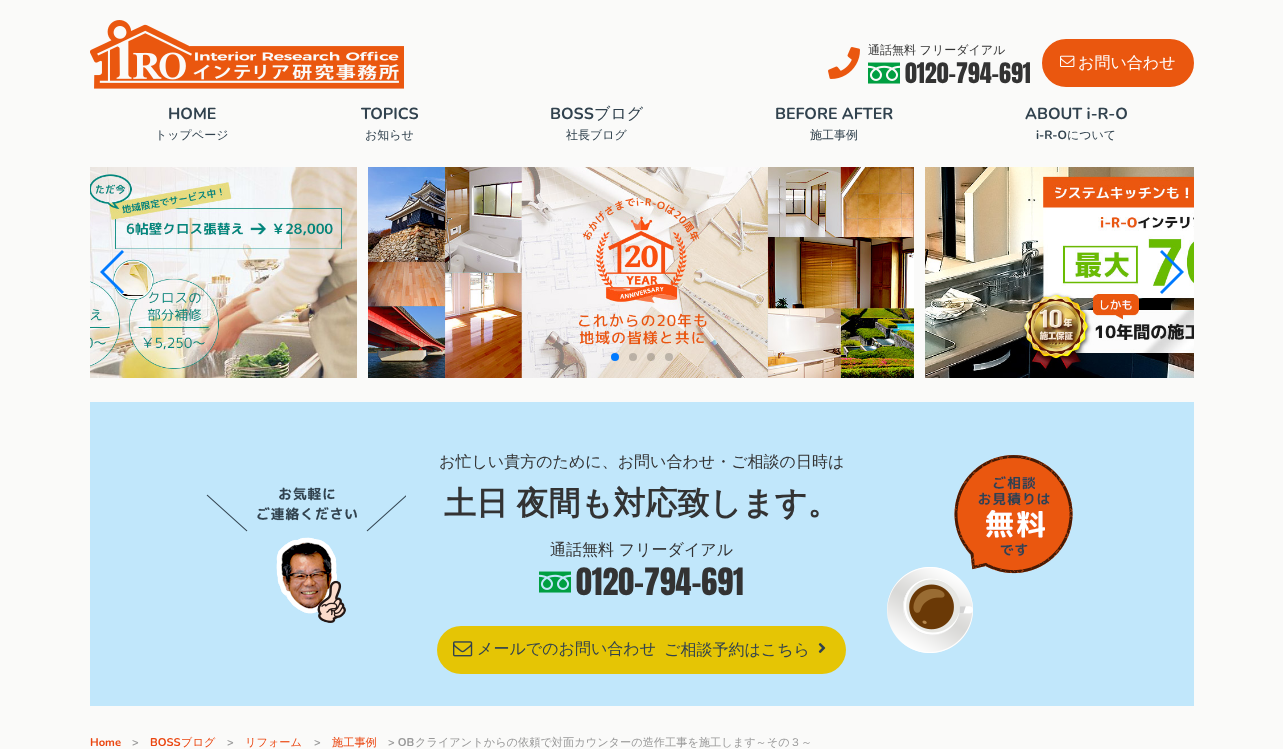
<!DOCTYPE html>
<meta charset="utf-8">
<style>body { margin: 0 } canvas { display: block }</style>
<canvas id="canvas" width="1283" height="749"></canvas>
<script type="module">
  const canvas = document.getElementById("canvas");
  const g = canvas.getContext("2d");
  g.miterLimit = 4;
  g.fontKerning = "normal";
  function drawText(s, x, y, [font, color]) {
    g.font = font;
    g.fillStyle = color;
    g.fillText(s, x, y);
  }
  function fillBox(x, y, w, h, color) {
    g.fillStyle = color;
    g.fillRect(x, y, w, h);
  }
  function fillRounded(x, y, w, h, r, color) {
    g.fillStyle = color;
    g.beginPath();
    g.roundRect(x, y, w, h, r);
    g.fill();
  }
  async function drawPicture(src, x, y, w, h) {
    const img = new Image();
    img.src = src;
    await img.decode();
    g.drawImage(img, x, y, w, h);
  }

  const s1 = ["500 12px WenQuanYi Zen Hei", "#333333"];
  const s2 = ["24px Anton", "#333333"];
  const s3 = ["500 16px WenQuanYi Zen Hei", "#FFFFFF"];
  const s4 = ["200 16px Nunito", "#31424E"];
  const s5 = ["500 12px WenQuanYi Zen Hei", "#31424E"];
  const s6 = ["500 16px WenQuanYi Zen Hei", "#31424E"];
  const s7 = ["200 12px Nunito", "#31424E"];
  const s8 = ["500 16px WenQuanYi Zen Hei", "#333333"];
  const s9 = ["bold 32px WenQuanYi Zen Hei", "#333333"];
  const s10 = ["32px Anton", "#333333"];
  const s11 = ["200 11.2px Nunito", "#EA450F"];
  const s12 = ["200 11.2px Nunito", "#999999"];
  const s13 = ["500 11.2px WenQuanYi Zen Hei", "#EA450F"];
  const s14 = ["500 11.2px WenQuanYi Zen Hei", "#999999"];

  fillBox(0, 0, 1283, 749, "#FAFAF9");
  await drawPicture("pic1.png", 90, 20, 314, 69);
  await drawPicture("pic2.png", 828, 47, 32, 32);
  drawText("通話無料 フリーダイアル", 868, 54, s1);
  await drawPicture("pic3.png", 868, 62, 32, 22);
  drawText("0120-794-691", 905, 83, s2);
  g.fillStyle = "#EA570F";
  g.beginPath();
  g.roundRect(1043, 40, 150, 46, 23);
  g.fill();
  g.strokeStyle = "#EA570F";
  g.lineWidth = 2;
  g.stroke();
  await drawPicture("pic4.png", 1060, 55, 15, 12);
  drawText("お問い合わせ", 1078, 68, s3);
  drawText("HOME", 168, 119, s4);
  drawText("トップページ", 155, 139, s5);
  drawText("TOPICS", 361, 119, s4);
  drawText("お知らせ", 365, 139, s5);
  drawText("BOSS", 550, 119, s4);
  drawText("ブログ", 594, 119, s6);
  drawText("社長ブログ", 566, 139, s5);
  drawText("BEFORE AFTER", 775, 119, s4);
  drawText("施工事例", 810, 139, s5);
  drawText("ABOUT i-R-O", 1025, 119, s4);
  drawText("i-R-O", 1036, 139, s7);
  drawText("について", 1067, 139, s5);
  await drawPicture("pic5.png", 90, 167, 267, 211);
  await drawPicture("pic6.png", 368, 167, 546, 211);
  await drawPicture("pic7.png", 925, 167, 269, 211);
  g.fillStyle = "#007AFF";
  g.beginPath();
  g.moveTo(100, 272);
  g.lineTo(122, 250);
  g.lineTo(124, 252);
  g.lineTo(104, 272);
  g.lineTo(124, 292);
  g.lineTo(122, 294);
  g.closePath();
  g.fill();
  g.beginPath();
  g.moveTo(1184, 272);
  g.lineTo(1162, 294);
  g.lineTo(1160, 292);
  g.lineTo(1180, 272);
  g.lineTo(1160, 252);
  g.lineTo(1162, 250);
  g.closePath();
  g.fill();
  g.beginPath();
  g.arc(615, 357, 4, 0, Math.PI * 2);
  g.fill();
  g.fillStyle = "rgba(0, 0, 0, 0.2)";
  g.beginPath();
  g.arc(633, 357, 4, 0, Math.PI * 2);
  g.fill();
  g.beginPath();
  g.arc(651, 357, 4, 0, Math.PI * 2);
  g.fill();
  g.beginPath();
  g.arc(669, 357, 4, 0, Math.PI * 2);
  g.fill();
  fillBox(90, 402, 1104, 304, "#C1E7FB");
  await drawPicture("pic8.png", 206, 455, 867, 198);
  drawText("お忙しい貴方のために、お問い合わせ・ご相談の日時は", 439, 467, s8);
  g.wordSpacing = "-1px";
  drawText("土日 夜間も対応致します。", 444, 514, s9);
  g.wordSpacing = "0px";
  drawText("通話無料 フリーダイアル", 550, 555, s8);
  await drawPicture("pic9.png", 539, 571, 32, 22);
  drawText("0120-794-691", 576, 595, s10);
  fillRounded(437, 626, 409, 48, 24, "#E5C505");
  await drawPicture("pic10.png", 453, 641, 20, 16);
  drawText("メールでのお問い合わせ", 477, 654, s6);
  drawText("ご相談予約はこちら", 664, 655, s6);
  await drawPicture("pic11.png", 818, 643, 8, 10);
  drawText("Home", 90, 746, s11);
  drawText(">", 132, 746, s12);
  drawText("BOSS", 150, 746, s11);
  drawText("ブログ", 181, 746, s13);
  drawText(">", 227, 746, s12);
  drawText("リフォーム", 245, 746, s13);
  drawText(">", 314, 746, s12);
  drawText("施工事例", 332, 746, s13);
  drawText("> OB", 388, 746, s12);
  drawText("クライアントからの依頼で対面カウンターの造作工事を施工します～その３～", 415, 746, s14);
</script>
